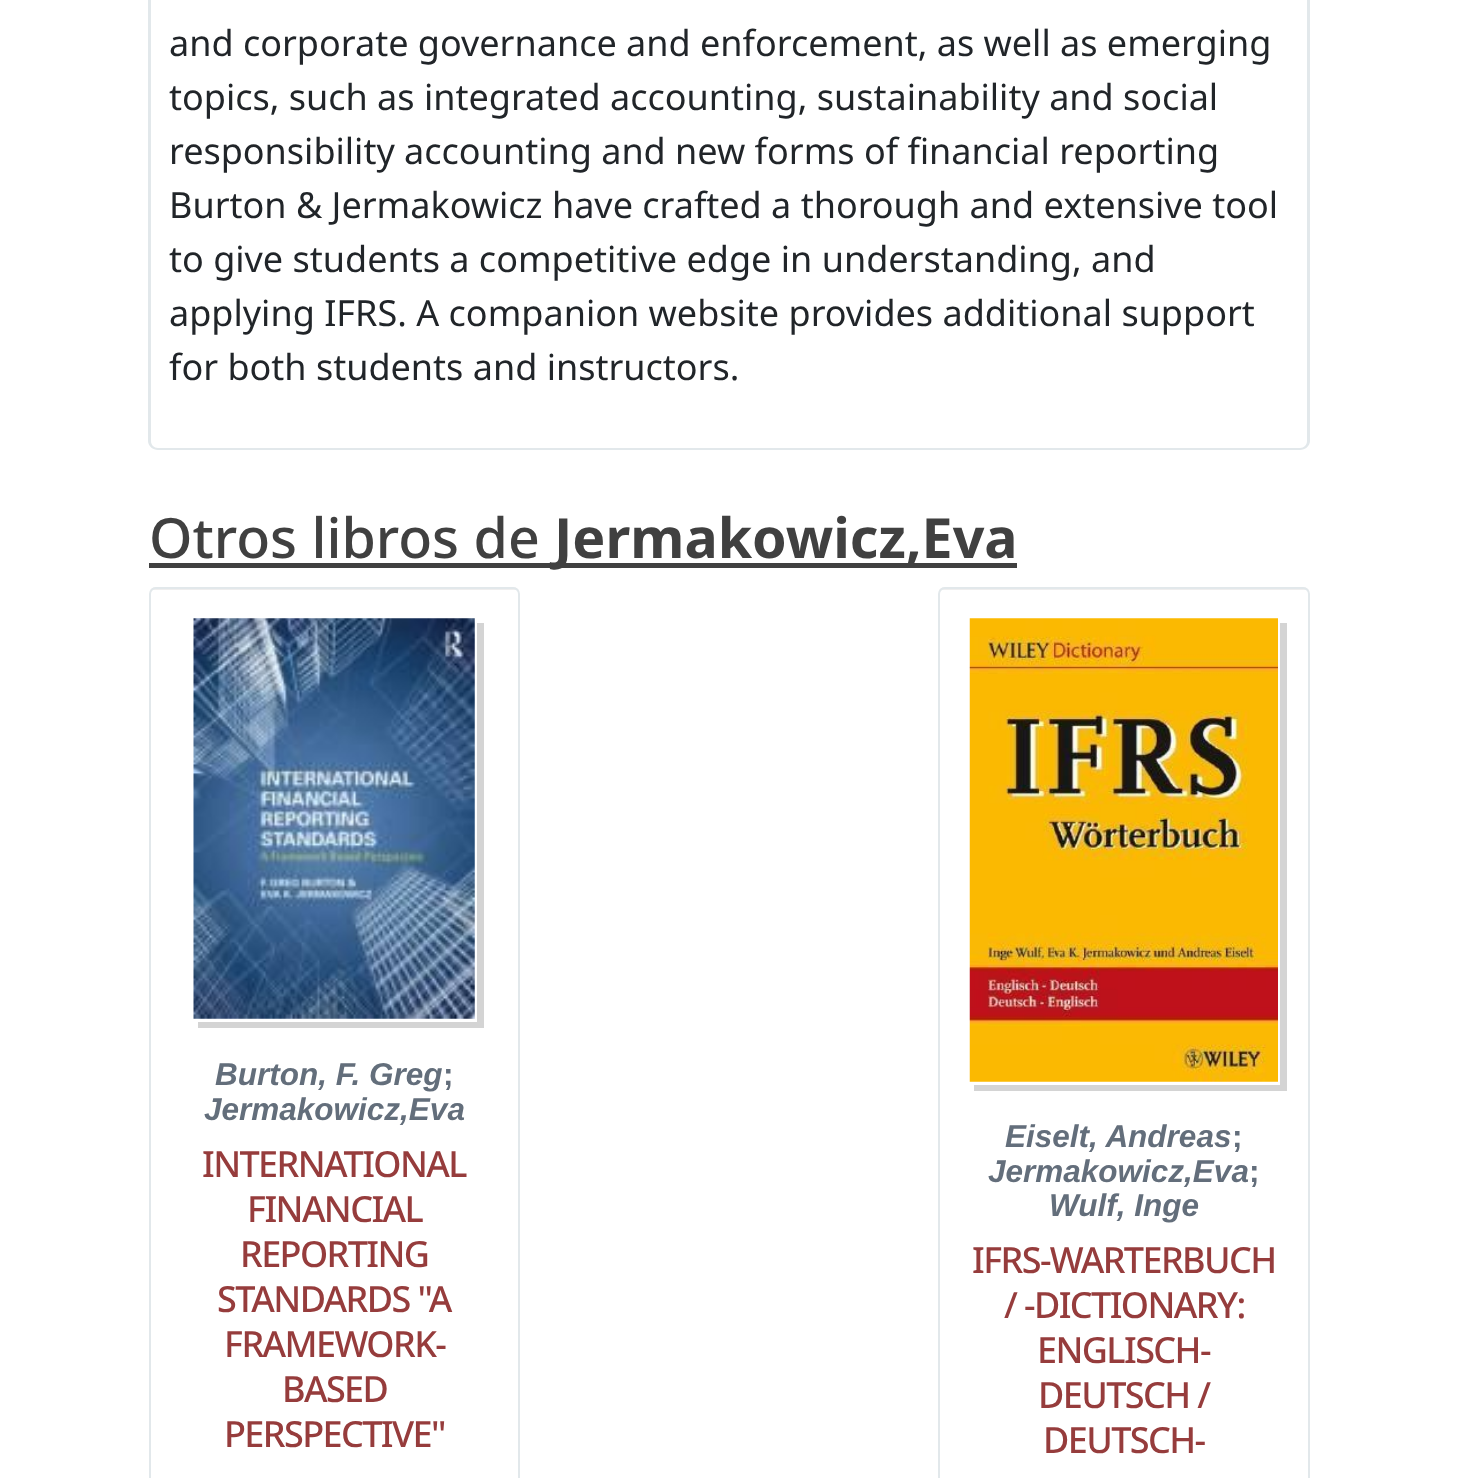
<!DOCTYPE html>
<meta charset="utf-8">
<style>body { margin: 0 } canvas { display: block }</style>
<canvas id="canvas" width="1458" height="1478"></canvas>
<script type="module">
  const canvas = document.getElementById("canvas");
  const g = canvas.getContext("2d");
  g.miterLimit = 4;
  g.fontKerning = "normal";
  function drawText(s, x, y, [font, color]) {
    g.font = font;
    g.fillStyle = color;
    g.fillText(s, x, y);
  }
  function fillBox(x, y, w, h, color) {
    g.fillStyle = color;
    g.fillRect(x, y, w, h);
  }
  async function drawPicture(src, x, y, w, h) {
    const img = new Image();
    img.src = src;
    await img.decode();
    g.drawImage(img, x, y, w, h);
  }
  let gradient;

  const s1 = ["36px Noto Sans", "#212529"];
  const s2 = ["500 55.5px Noto Sans", "#404040"];
  const s3 = ["bold 55.5px Noto Sans", "#404040"];
  const s4 = ["italic bold 31.5px Liberation Sans", "#636E7B"];
  const s5 = ["bold 31.5px Liberation Sans", "#636E7B"];
  const s6 = ["500 36px Noto Sans", "#963C3C"];

  fillBox(0, 0, 1458, 1478, "#FFFFFF");
  g.fillStyle = "#E2E8EB";
  g.beginPath();
  g.moveTo(158, -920);
  g.lineTo(1300, -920);
  g.bezierCurveTo(1305, -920, 1310, -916, 1310, -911);
  g.lineTo(1310, 441);
  g.bezierCurveTo(1310, 446, 1305, 450, 1300, 450);
  g.lineTo(158, 450);
  g.bezierCurveTo(153, 450, 148, 446, 148, 441);
  g.lineTo(148, -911);
  g.bezierCurveTo(148, -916, 153, -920, 158, -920);
  g.closePath();
  g.moveTo(158, -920);
  g.lineTo(1300, -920);
  g.bezierCurveTo(1304, -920, 1307, -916, 1307, -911);
  g.lineTo(1307, 441);
  g.bezierCurveTo(1307, 445, 1304, 448, 1300, 448);
  g.lineTo(158, 448);
  g.bezierCurveTo(154, 448, 151, 445, 151, 441);
  g.lineTo(151, -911);
  g.bezierCurveTo(151, -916, 154, -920, 158, -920);
  g.closePath();
  g.fill("evenodd");
  drawText("and corporate governance and enforcement, as well as emerging", 169, 56, s1);
  drawText("topics, such as integrated accounting, sustainability and social", 169, 110, s1);
  drawText("responsibility accounting and new forms of financial reporting", 169, 164, s1);
  drawText("Burton & Jermakowicz have crafted a thorough and extensive tool", 169, 218, s1);
  drawText("to give students a competitive edge in understanding, and", 169, 272, s1);
  drawText("applying IFRS. A companion website provides additional support", 169, 326, s1);
  drawText("for both students and instructors.", 169, 380, s1);
  drawText("Otros libros de", 149, 558, s2);
  fillBox(149, 563, 868, 5, "#404040");
  drawText("Jermakowicz,Eva", 554, 558, s3);
  g.save();
  g.beginPath();
  g.roundRect(149, 587, 371, 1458, 7);
  g.clip();
  gradient = g.createLinearGradient(334, 590, 334, -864);
  gradient.addColorStop(0, "#EFEEEE");
  gradient.addColorStop(0.17, "#FFFFFF");
  g.fillStyle = gradient;
  g.fillRect(149, 587, 371, 3);
  g.restore();
  g.beginPath();
  g.roundRect(150, 588, 369, 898, 6);
  g.strokeStyle = "#E2E8EB";
  g.lineWidth = 2;
  g.stroke();
  g.fillStyle = "#D4D4D4";
  g.beginPath();
  g.moveTo(198, 1022);
  g.lineTo(198, 1028);
  g.lineTo(484, 1028);
  g.lineTo(484, 623);
  g.lineTo(477, 623);
  g.lineTo(477, 1022);
  g.closePath();
  g.fill();
  await drawPicture("pic1.png", 193, 618, 282, 401);
  drawText("Burton, F. Greg", 215, 1085, s4);
  drawText(";", 443, 1085, s5);
  drawText("Jermakowicz,Eva", 204, 1120, s4);
  g.letterSpacing = "-1.6px";
  drawText("INTERNATIONAL", 202, 1177, s6);
  drawText("FINANCIAL", 247, 1222, s6);
  drawText("REPORTING", 240, 1267, s6);
  drawText("STANDARDS \"A", 217, 1312, s6);
  drawText("FRAMEWORK-", 224, 1357, s6);
  drawText("BASED", 282, 1402, s6);
  drawText("PERSPECTIVE\"", 224, 1447, s6);
  g.save();
  g.beginPath();
  g.roundRect(938, 587, 372, 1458, 7);
  g.clip();
  gradient = g.createLinearGradient(1124, 590, 1124, -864);
  gradient.addColorStop(0, "#EFEEEE");
  gradient.addColorStop(0.17, "#FFFFFF");
  g.fillStyle = gradient;
  g.fillRect(938, 587, 372, 3);
  g.restore();
  g.beginPath();
  g.roundRect(939, 588, 370, 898, 6);
  g.stroke();
  g.fillStyle = "#D4D4D4";
  g.beginPath();
  g.moveTo(974, 1084);
  g.lineTo(974, 1091);
  g.lineTo(1287, 1091);
  g.lineTo(1287, 623);
  g.lineTo(1280, 623);
  g.lineTo(1280, 1084);
  g.closePath();
  g.fill();
  g.strokeStyle = "#FFFFFF";
  g.strokeRect(969, 618, 310, 466);
  await drawPicture("pic2.png", 969, 618, 309, 464);
  g.letterSpacing = "0px";
  drawText("Eiselt, Andreas", 1005, 1147, s4);
  drawText(";", 1232, 1147, s5);
  drawText("Jermakowicz,Eva", 988, 1182, s4);
  drawText(";", 1249, 1182, s5);
  drawText("Wulf, Inge", 1049, 1216, s4);
  g.letterSpacing = "-1.6px";
  drawText("IFRS-WARTERBUCH", 972, 1273, s6);
  drawText("/ -DICTIONARY:", 1004, 1318, s6);
  drawText("ENGLISCH-", 1037, 1363, s6);
  drawText("DEUTSCH /", 1038, 1408, s6);
  drawText("DEUTSCH-", 1043, 1453, s6);
</script>
